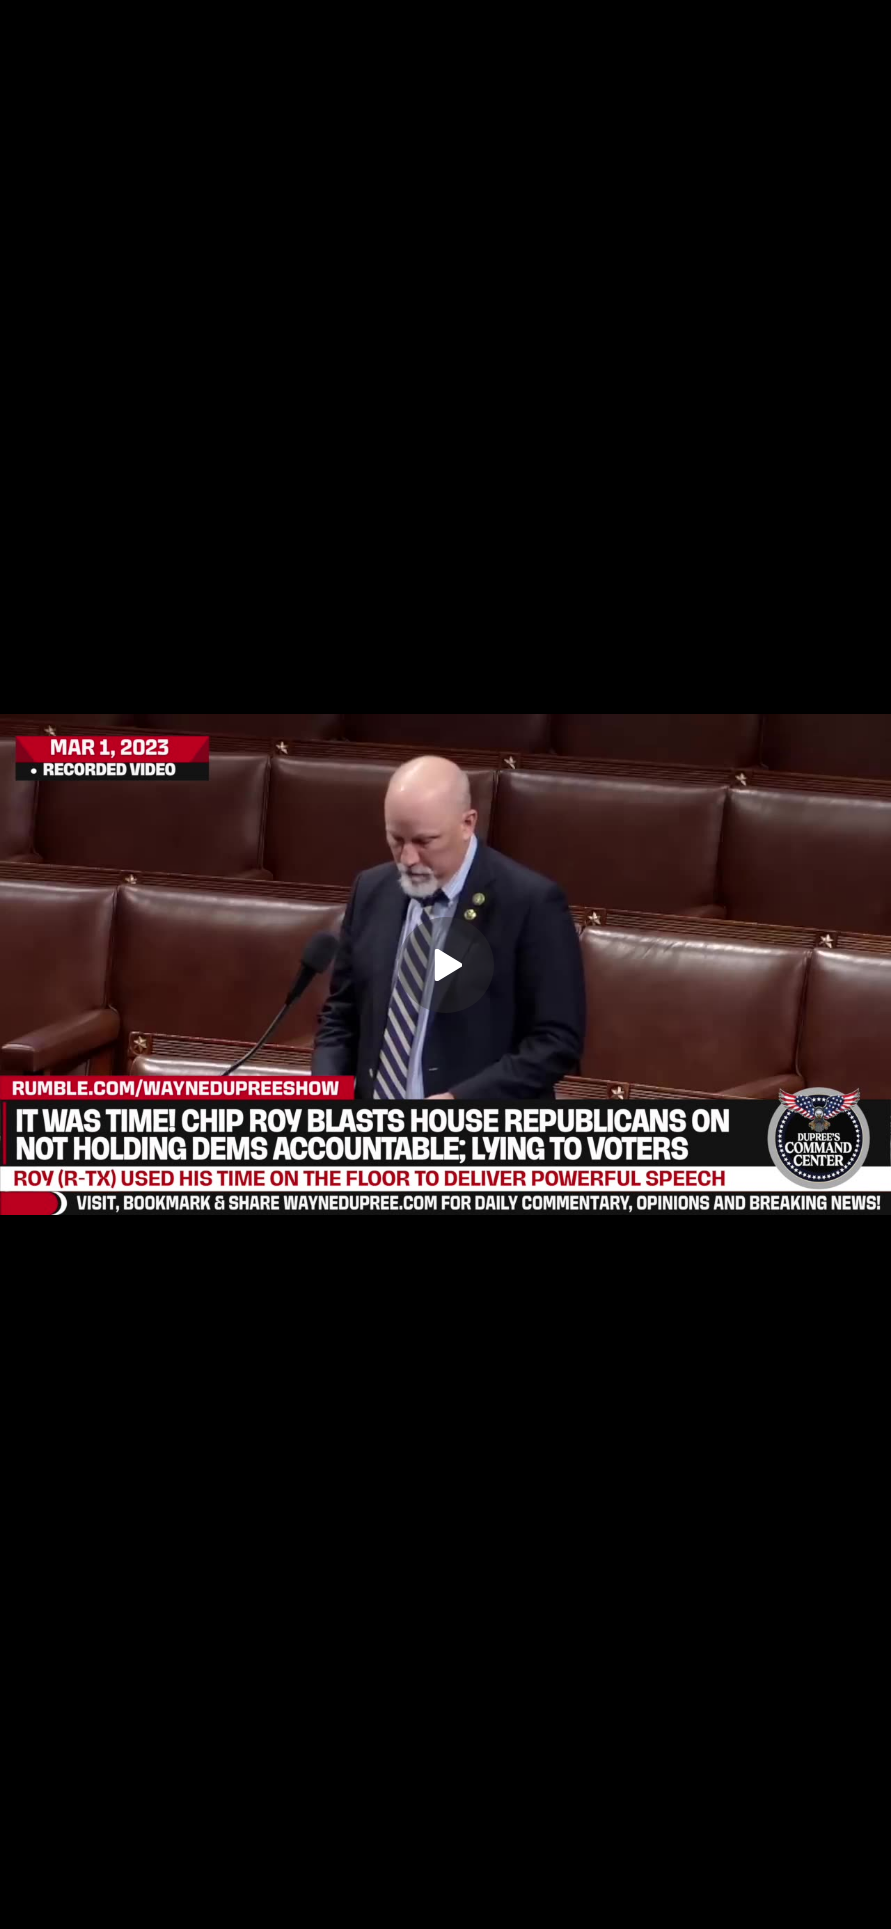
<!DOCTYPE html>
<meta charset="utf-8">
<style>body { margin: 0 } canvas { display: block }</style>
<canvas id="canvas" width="891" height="1929"></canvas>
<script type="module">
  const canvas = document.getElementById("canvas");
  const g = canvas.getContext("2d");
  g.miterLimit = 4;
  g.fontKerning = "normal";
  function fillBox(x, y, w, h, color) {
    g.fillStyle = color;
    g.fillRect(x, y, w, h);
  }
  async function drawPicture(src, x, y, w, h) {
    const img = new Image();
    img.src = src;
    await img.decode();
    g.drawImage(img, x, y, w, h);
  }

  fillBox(0, 0, 891, 1929, "#000000");
  await drawPicture("pic1.png", 0, 714, 891, 501);
  g.fillStyle = "rgba(48, 48, 48, 0.4)";
  g.beginPath();
  g.arc(446, 965, 48, 0, Math.PI * 2);
  g.fill();
  g.fillStyle = "#FFFFFF";
  g.beginPath();
  g.moveTo(460, 965);
  g.lineTo(437, 951);
  g.lineTo(437, 979);
  g.closePath();
  g.fill();
  g.save();
  g.beginPath();
  g.rect(430, 949, 32, 32);
  g.clip();
  g.beginPath();
  g.moveTo(460, 965);
  g.lineTo(437, 951);
  g.lineTo(437, 979);
  g.closePath();
  g.strokeStyle = "#FFFFFF";
  g.lineWidth = 4.4;
  g.lineJoin = "round";
  g.stroke();
  g.restore();
</script>
